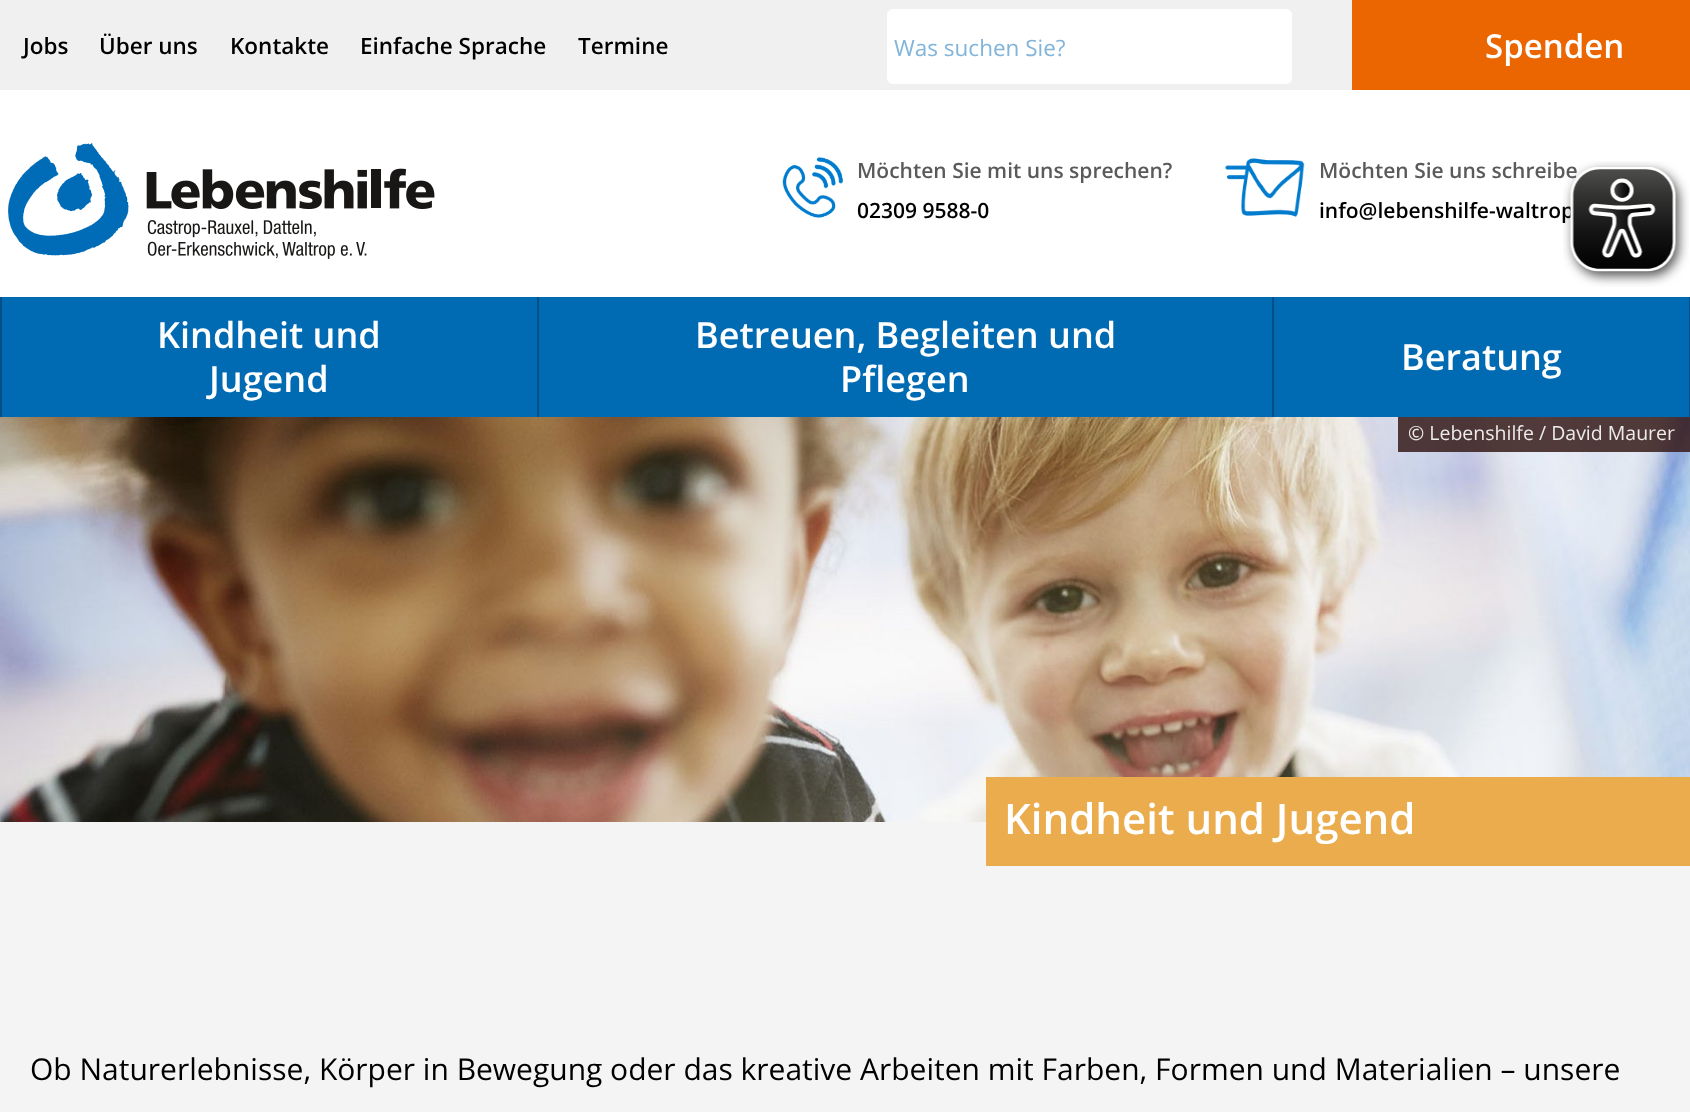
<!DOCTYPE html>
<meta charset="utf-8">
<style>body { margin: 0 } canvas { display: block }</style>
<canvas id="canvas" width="1690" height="1112"></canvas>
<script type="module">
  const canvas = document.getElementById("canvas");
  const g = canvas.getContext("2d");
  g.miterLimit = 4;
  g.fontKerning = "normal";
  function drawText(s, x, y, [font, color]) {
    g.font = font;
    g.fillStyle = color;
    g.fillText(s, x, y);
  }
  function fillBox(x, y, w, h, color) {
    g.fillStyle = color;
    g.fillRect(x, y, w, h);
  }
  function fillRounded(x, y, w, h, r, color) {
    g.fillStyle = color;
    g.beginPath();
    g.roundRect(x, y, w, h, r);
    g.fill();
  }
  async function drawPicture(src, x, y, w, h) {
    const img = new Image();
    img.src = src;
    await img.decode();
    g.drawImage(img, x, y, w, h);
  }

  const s1 = ["600 22.5px Open Sans", "#000000"];
  const s2 = ["22.5px Open Sans", "#80B4DA"];
  const s3 = ["600 33px Open Sans", "#FFFFFF"];
  const s4 = ["600 21px Open Sans", "#5A5A5C"];
  const s5 = ["600 21px Open Sans", "#000000"];
  const s6 = ["600 36px Open Sans", "#FFFFFF"];
  const s7 = ["19.5px Open Sans", "#EDEBEB"];
  const s8 = ["600 42px Open Sans", "#FFFFFF"];
  const s9 = ["30px Open Sans", "#000000"];

  fillBox(0, 0, 1690, 1112, "#F4F4F4");
  fillBox(0, 0, 1352, 90, "#F0F0F0");
  drawText("Jobs", 23, 54, s1);
  drawText("Über uns", 99, 54, s1);
  drawText("Kontakte", 230, 54, s1);
  drawText("Einfache Sprache", 360, 54, s1);
  drawText("Termine", 578, 54, s1);
  fillRounded(887, 9, 405, 75, 6, "#FFFFFF");
  drawText("Was suchen Sie?", 894, 56, s2);
  fillBox(1352, 0, 338, 90, "#EB6600");
  drawText("Spenden", 1485, 58, s3);
  fillBox(0, 90, 1690, 207, "#FFFFFF");
  await drawPicture("pic1.png", 8, 143, 427, 116);
  await drawPicture("pic2.png", 782, 157, 61, 61);
  drawText("Möchten Sie mit uns sprechen?", 857, 178, s4);
  drawText("02309 9588-0", 857, 218, s5);
  await drawPicture("pic3.png", 1225, 158, 80, 59);
  drawText("Möchten Sie uns schreibe", 1319, 178, s4);
  drawText("info@lebenshilfe-waltrop", 1319, 218, s5);
  fillBox(2, 297, 1687, 120, "#006BB3");
  fillBox(0, 297, 2, 120, "#004F87");
  drawText("Kindheit und", 157, 348, s6);
  drawText("Jugend", 209, 392, s6);
  fillBox(537, 297, 2, 120, "#004F87");
  drawText("Betreuen, Begleiten und", 695, 348, s6);
  drawText("Pflegen", 840, 392, s6);
  fillBox(1689, 297, 1, 120, "#004F87");
  fillBox(1272, 297, 2, 120, "#004F87");
  drawText("Beratung", 1401, 370, s6);
  await drawPicture("pic4.png", 0, 417, 1690, 405);
  fillBox(1398, 417, 292, 35, "rgba(52, 24, 21, 0.84)");
  drawText("© Lebenshilfe / David Maurer", 1408, 440, s7);
  fillBox(986, 777, 704, 89, "#EAAC4C");
  drawText("Kindheit und Jugend", 1004, 834, s8);
  drawText("Ob Naturerlebnisse, Körper in Bewegung oder das kreative Arbeiten mit Farben, Formen und Materialien – unsere", 30, 1080, s9);
  await drawPicture("pic5.png", 1563, 161, 126, 126);
</script>
